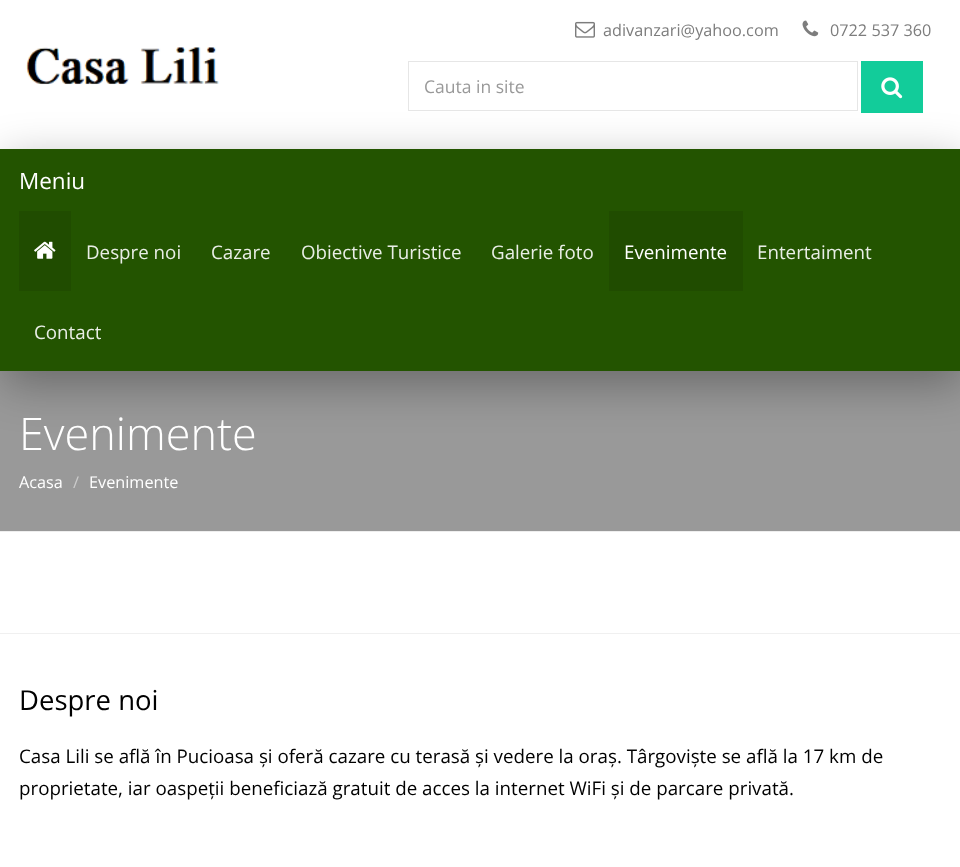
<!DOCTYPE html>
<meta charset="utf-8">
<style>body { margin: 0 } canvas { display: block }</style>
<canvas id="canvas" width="960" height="867"></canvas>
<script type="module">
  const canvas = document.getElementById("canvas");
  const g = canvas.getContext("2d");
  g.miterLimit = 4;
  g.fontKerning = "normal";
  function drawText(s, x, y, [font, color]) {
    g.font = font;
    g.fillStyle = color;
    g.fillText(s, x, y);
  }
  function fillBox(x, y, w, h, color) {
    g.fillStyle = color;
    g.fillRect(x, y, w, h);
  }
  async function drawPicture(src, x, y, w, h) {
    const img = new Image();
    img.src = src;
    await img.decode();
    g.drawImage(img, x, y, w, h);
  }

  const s1 = ["16.25px Open Sans", "#7D7D7D"];
  const s2 = ["17.5px Open Sans", "#999999"];
  const s3 = ["22.5px Open Sans", "#FFFFFF"];
  const s4 = ["18.75px Open Sans", "#E9EEE6"];
  const s5 = ["18.75px Open Sans", "#FFFFFF"];
  const s6 = ["300 45px Open Sans", "#FFFFFF"];
  const s7 = ["16.25px Open Sans", "#FFFFFF"];
  const s8 = ["16.25px Open Sans", "#CCCCCC"];
  const s9 = ["27.5px Open Sans", "#000000"];
  const s10 = ["18.75px Open Sans", "#000000"];

  fillBox(0, 0, 960, 867, "#FFFFFF");
  await drawPicture("pic1.png", 26, 47, 193, 38);
  await drawPicture("pic2.png", 575, 21, 20, 17);
  drawText("adivanzari@yahoo.com", 603, 36, s1);
  await drawPicture("pic3.png", 802, 20, 17, 17);
  drawText("0722 537 360", 830, 36, s1);
  g.strokeStyle = "#E6E6E6";
  g.strokeRect(408.5, 61.5, 449, 49);
  drawText("Cauta in site", 424, 93, s2);
  fillBox(861, 61, 62, 52, "#12CC9A");
  await drawPicture("pic4.png", 881, 77, 22, 22);
  fillBox(0, 371, 960, 160, "#999999");
  g.fillStyle = "rgba(0, 0, 0, 0.31)";
  g.filter = "blur(22.5px)";
  g.beginPath();
  g.rect(3, 161, 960, 223);
  g.fill();
  g.filter = "none";
  fillBox(0, 149, 960, 222, "#235400");
  drawText("Meniu", 19, 189, s3);
  fillBox(19, 211, 52, 80, "#204C00");
  await drawPicture("pic5.png", 34, 241, 22, 18);
  drawText("Despre noi", 86, 259, s4);
  drawText("Cazare", 211, 259, s4);
  drawText("Obiective Turistice", 301, 259, s4);
  drawText("Galerie foto", 491, 259, s4);
  fillBox(609, 211, 134, 80, "#204C00");
  drawText("Evenimente", 624, 259, s5);
  drawText("Entertaiment", 757, 259, s4);
  drawText("Contact", 34, 339, s4);
  fillBox(0, 531, 960, 1, "#EEEEEE");
  drawText("Evenimente", 19, 450, s6);
  drawText("Acasa", 19, 488, s7);
  drawText("/", 73, 488, s8);
  drawText("Evenimente", 89, 488, s7);
  fillBox(0, 633, 960, 1, "#F0F0F0");
  drawText("Despre noi", 19, 710, s9);
  drawText("Casa Lili se află în Pucioasa și oferă cazare cu terasă și vedere la oraș. Târgoviște se află la 17 km de", 19, 763, s10);
  drawText("proprietate, iar oaspeții beneficiază gratuit de acces la internet WiFi și de parcare privată.", 19, 795, s10);
</script>
